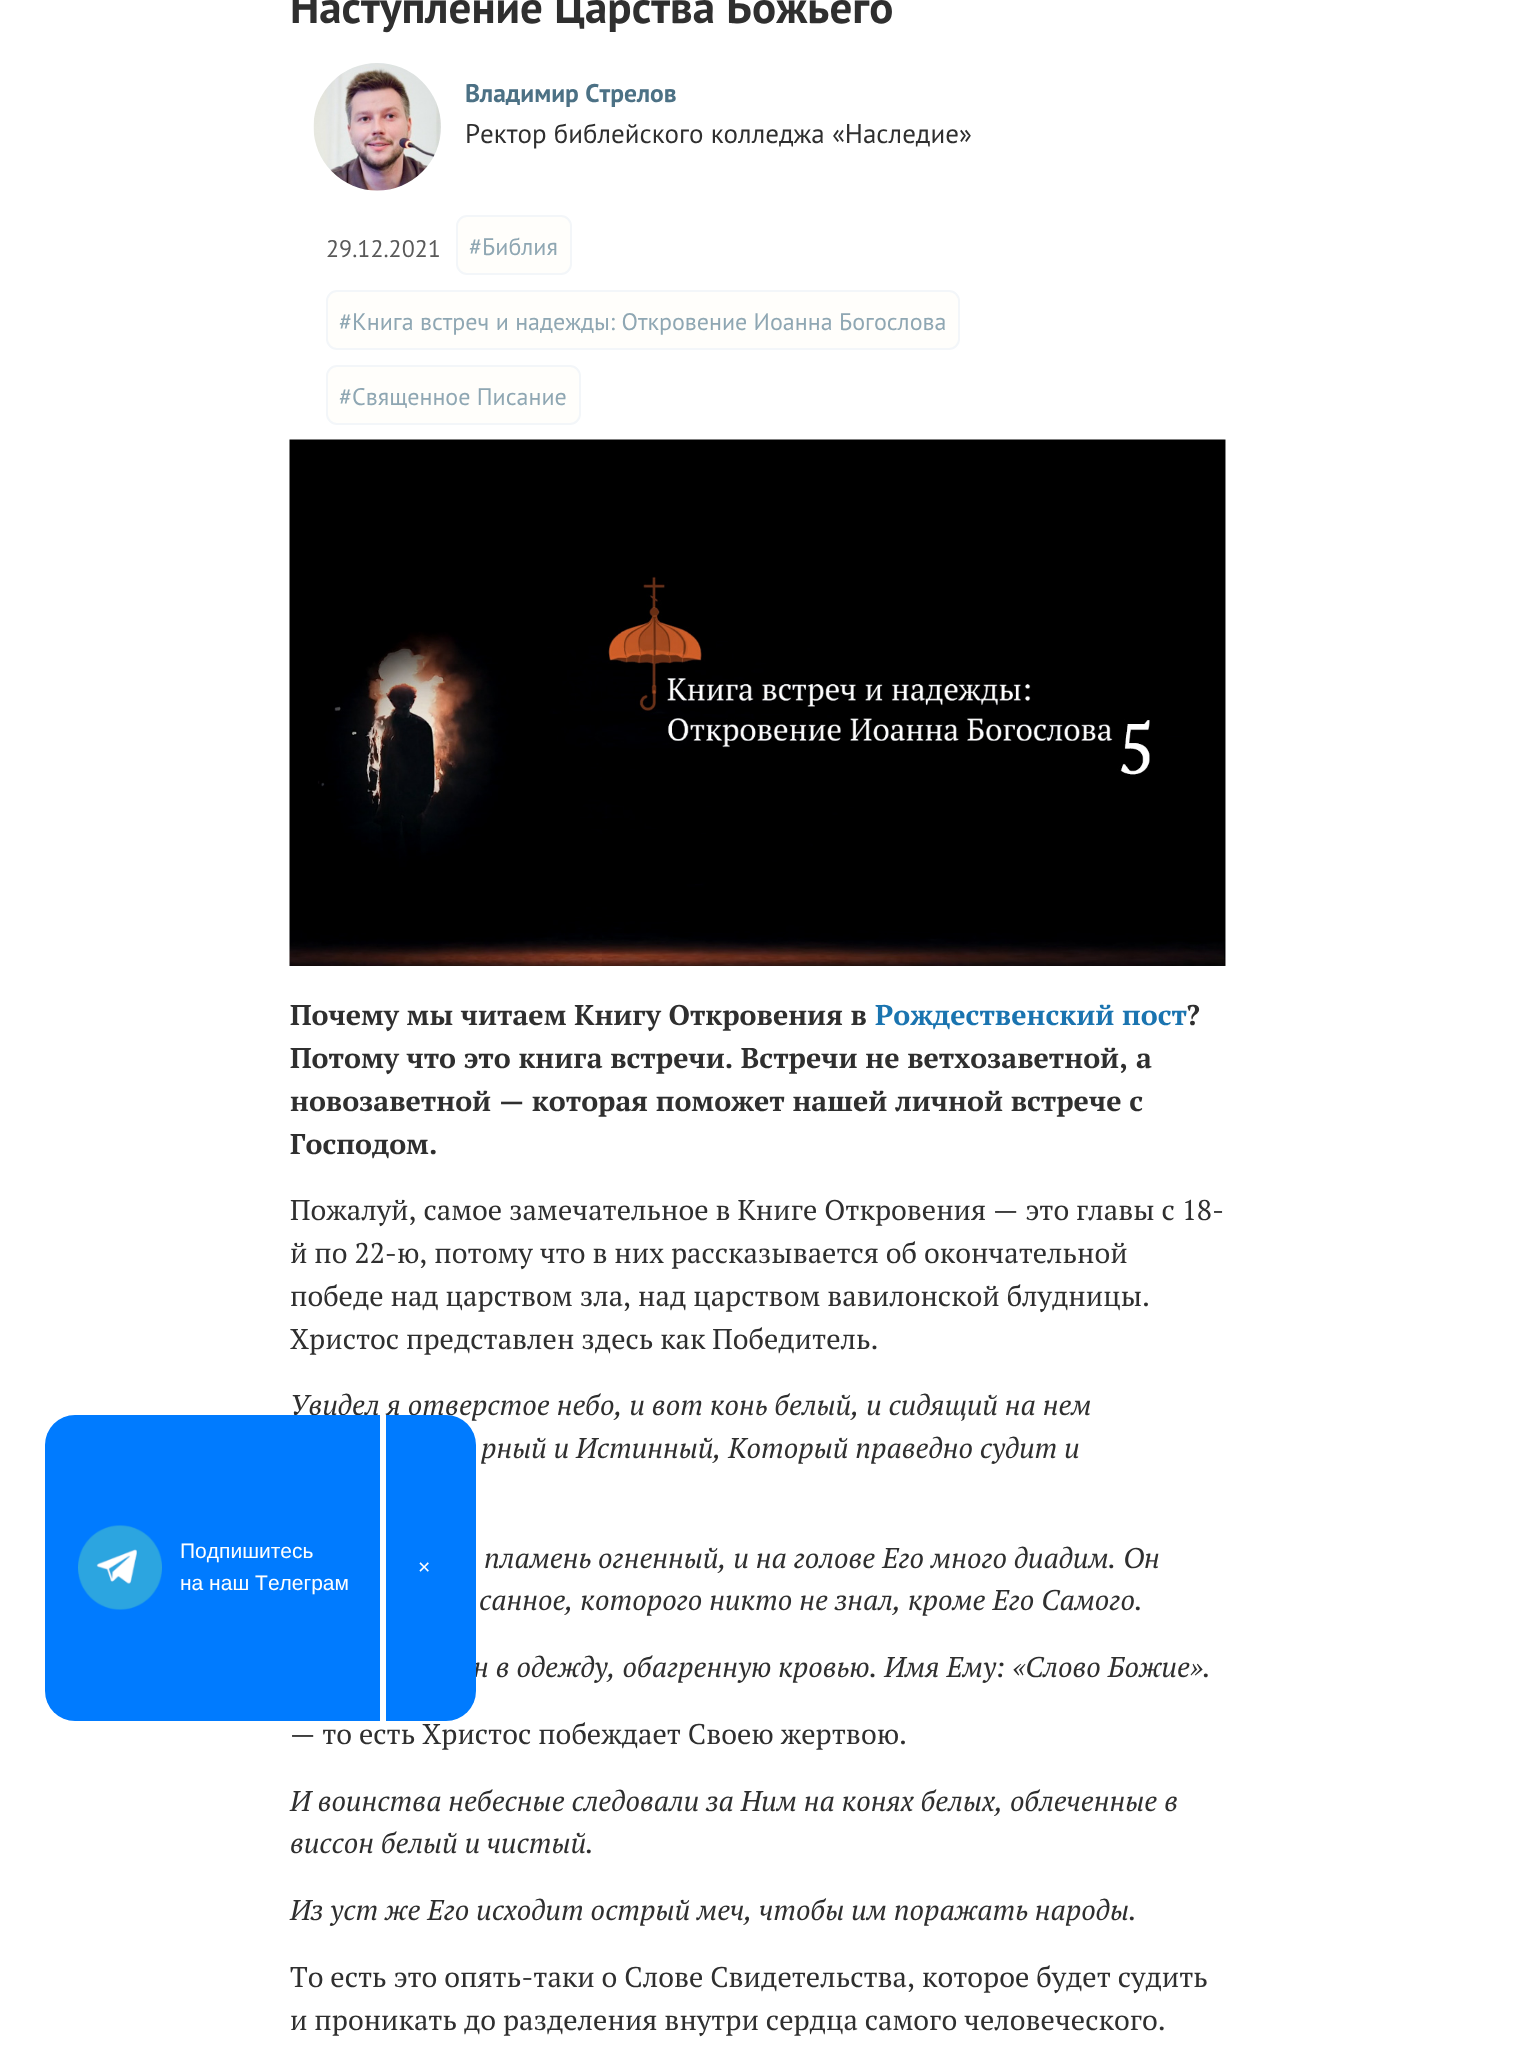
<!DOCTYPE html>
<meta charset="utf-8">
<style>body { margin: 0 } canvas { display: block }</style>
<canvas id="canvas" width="1514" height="2049"></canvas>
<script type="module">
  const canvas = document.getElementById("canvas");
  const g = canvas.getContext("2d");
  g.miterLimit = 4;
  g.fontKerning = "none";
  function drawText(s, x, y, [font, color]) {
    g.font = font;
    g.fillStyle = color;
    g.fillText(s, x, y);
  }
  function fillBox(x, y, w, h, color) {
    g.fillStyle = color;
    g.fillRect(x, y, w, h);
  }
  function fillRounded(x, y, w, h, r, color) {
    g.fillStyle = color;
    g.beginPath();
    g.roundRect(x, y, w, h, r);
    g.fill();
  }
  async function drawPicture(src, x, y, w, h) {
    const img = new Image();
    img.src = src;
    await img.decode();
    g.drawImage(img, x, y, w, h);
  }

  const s1 = ["bold 45px PT Sans", "#2F2F2F"];
  const s2 = ["bold 25.5px PT Sans", "#4C7185"];
  const s3 = ["27px PT Sans", "#2F2F2F"];
  const s4 = ["24px PT Sans", "#595959"];
  const s5 = ["24px PT Sans", "#8FA7B3"];
  const s6 = ["bold 28.5px PT Serif", "#2F2F2F"];
  const s7 = ["bold 28.5px PT Serif", "#1A74B0"];
  const s8 = ["28.5px PT Serif", "#2F2F2F"];
  const s9 = ["italic 28.5px PT Serif", "#2F2F2F"];
  const s10 = ["21px Liberation Sans", "#FFFFFF"];

  fillBox(0, 0, 1514, 2049, "#FFFFFF");
  drawText("Наступление Царства Божьего", 290, 23, s1);
  await drawPicture("pic1.png", 313, 63, 128, 128);
  drawText("Владимир Стрелов", 465, 102, s2);
  drawText("Ректор библейского колледжа «Наследие»", 465, 143, s3);
  drawText("29.12.2021", 326, 257, s4);
  g.fillStyle = "#FFFEFB";
  g.beginPath();
  g.roundRect(457, 216, 114, 58, 10);
  g.fill();
  g.strokeStyle = "#F3F6F9";
  g.lineWidth = 2;
  g.stroke();
  drawText("#Библия", 469, 255, s5);
  g.fillStyle = "#FFFEFB";
  g.beginPath();
  g.roundRect(327, 291, 632, 58, 10);
  g.fill();
  g.stroke();
  drawText("#Книга встреч и надежды: Откровение Иоанна Богослова", 339, 330, s5);
  g.fillStyle = "#FFFEFB";
  g.beginPath();
  g.roundRect(327, 366, 253, 58, 10);
  g.fill();
  g.stroke();
  drawText("#Священное Писание", 339, 405, s5);
  drawText("Почему мы читаем Книгу Откровения в", 290, 1025, s6);
  drawText("Рождественский пост", 875, 1025, s7);
  drawText("?", 1186, 1025, s6);
  drawText("Потому что это книга встречи. Встречи не ветхозаветной,", 290, 1068, s6);
  drawText("а", 1136, 1068, s6);
  drawText("новозаветной — которая поможет нашей личной встрече с", 290, 1111, s6);
  drawText("Господом.", 290, 1154, s6);
  drawText("Пожалуй, самое замечательное в Книге Откровения — это главы с 18-", 290, 1220, s8);
  drawText("й по 22-ю, потому что в них рассказывается об окончательной", 290, 1263, s8);
  drawText("победе над царством зла, над царством вавилонской блудницы.", 290, 1306, s8);
  drawText("Христос представлен здесь как Победитель.", 290, 1349, s8);
  drawText("Увидел я отверстое небо, и вот конь белый, и сидящий на нем", 290, 1415, s9);
  drawText("рный и Истинный, Который праведно судит и", 481, 1458, s9);
  await drawPicture("pic2.png", 289, 439, 937, 527);
  drawText("н в одежду, обагренную кровью. Имя Ему: «Слово Божие».", 473, 1677, s9);
  fillRounded(45, 1415, 431, 306, 30, "#007BFF");
  await drawPicture("pic3.png", 78, 1525, 84, 85);
  drawText("Подпишитесь", 180, 1558, s10);
  drawText("на наш Телеграм", 180, 1590, s10);
  fillBox(380, 1415, 6, 306, "#FFFFFF");
  drawText("×", 418, 1574, s10);
  drawText("пламень огненный, и на голове Его много диадим. Он", 484, 1568, s9);
  drawText("санное, которого никто не знал, кроме Его Самого.", 479, 1610, s9);
  drawText("— то есть Христос побеждает Своею жертвою.", 290, 1744, s8);
  drawText("И воинства небесные следовали за Ним на конях белых, облеченные в", 290, 1811, s9);
  drawText("виссон белый и чистый.", 290, 1853, s9);
  drawText("Из уст же Его исходит острый меч, чтобы им поражать народы.", 290, 1920, s9);
  drawText("То есть это опять-таки о Слове Свидетельства,", 290, 1987, s8);
  drawText("которое будет судить", 922, 1987, s8);
  drawText("и проникать до разделения внутри сердца самого человеческого.", 290, 2030, s8);
</script>
